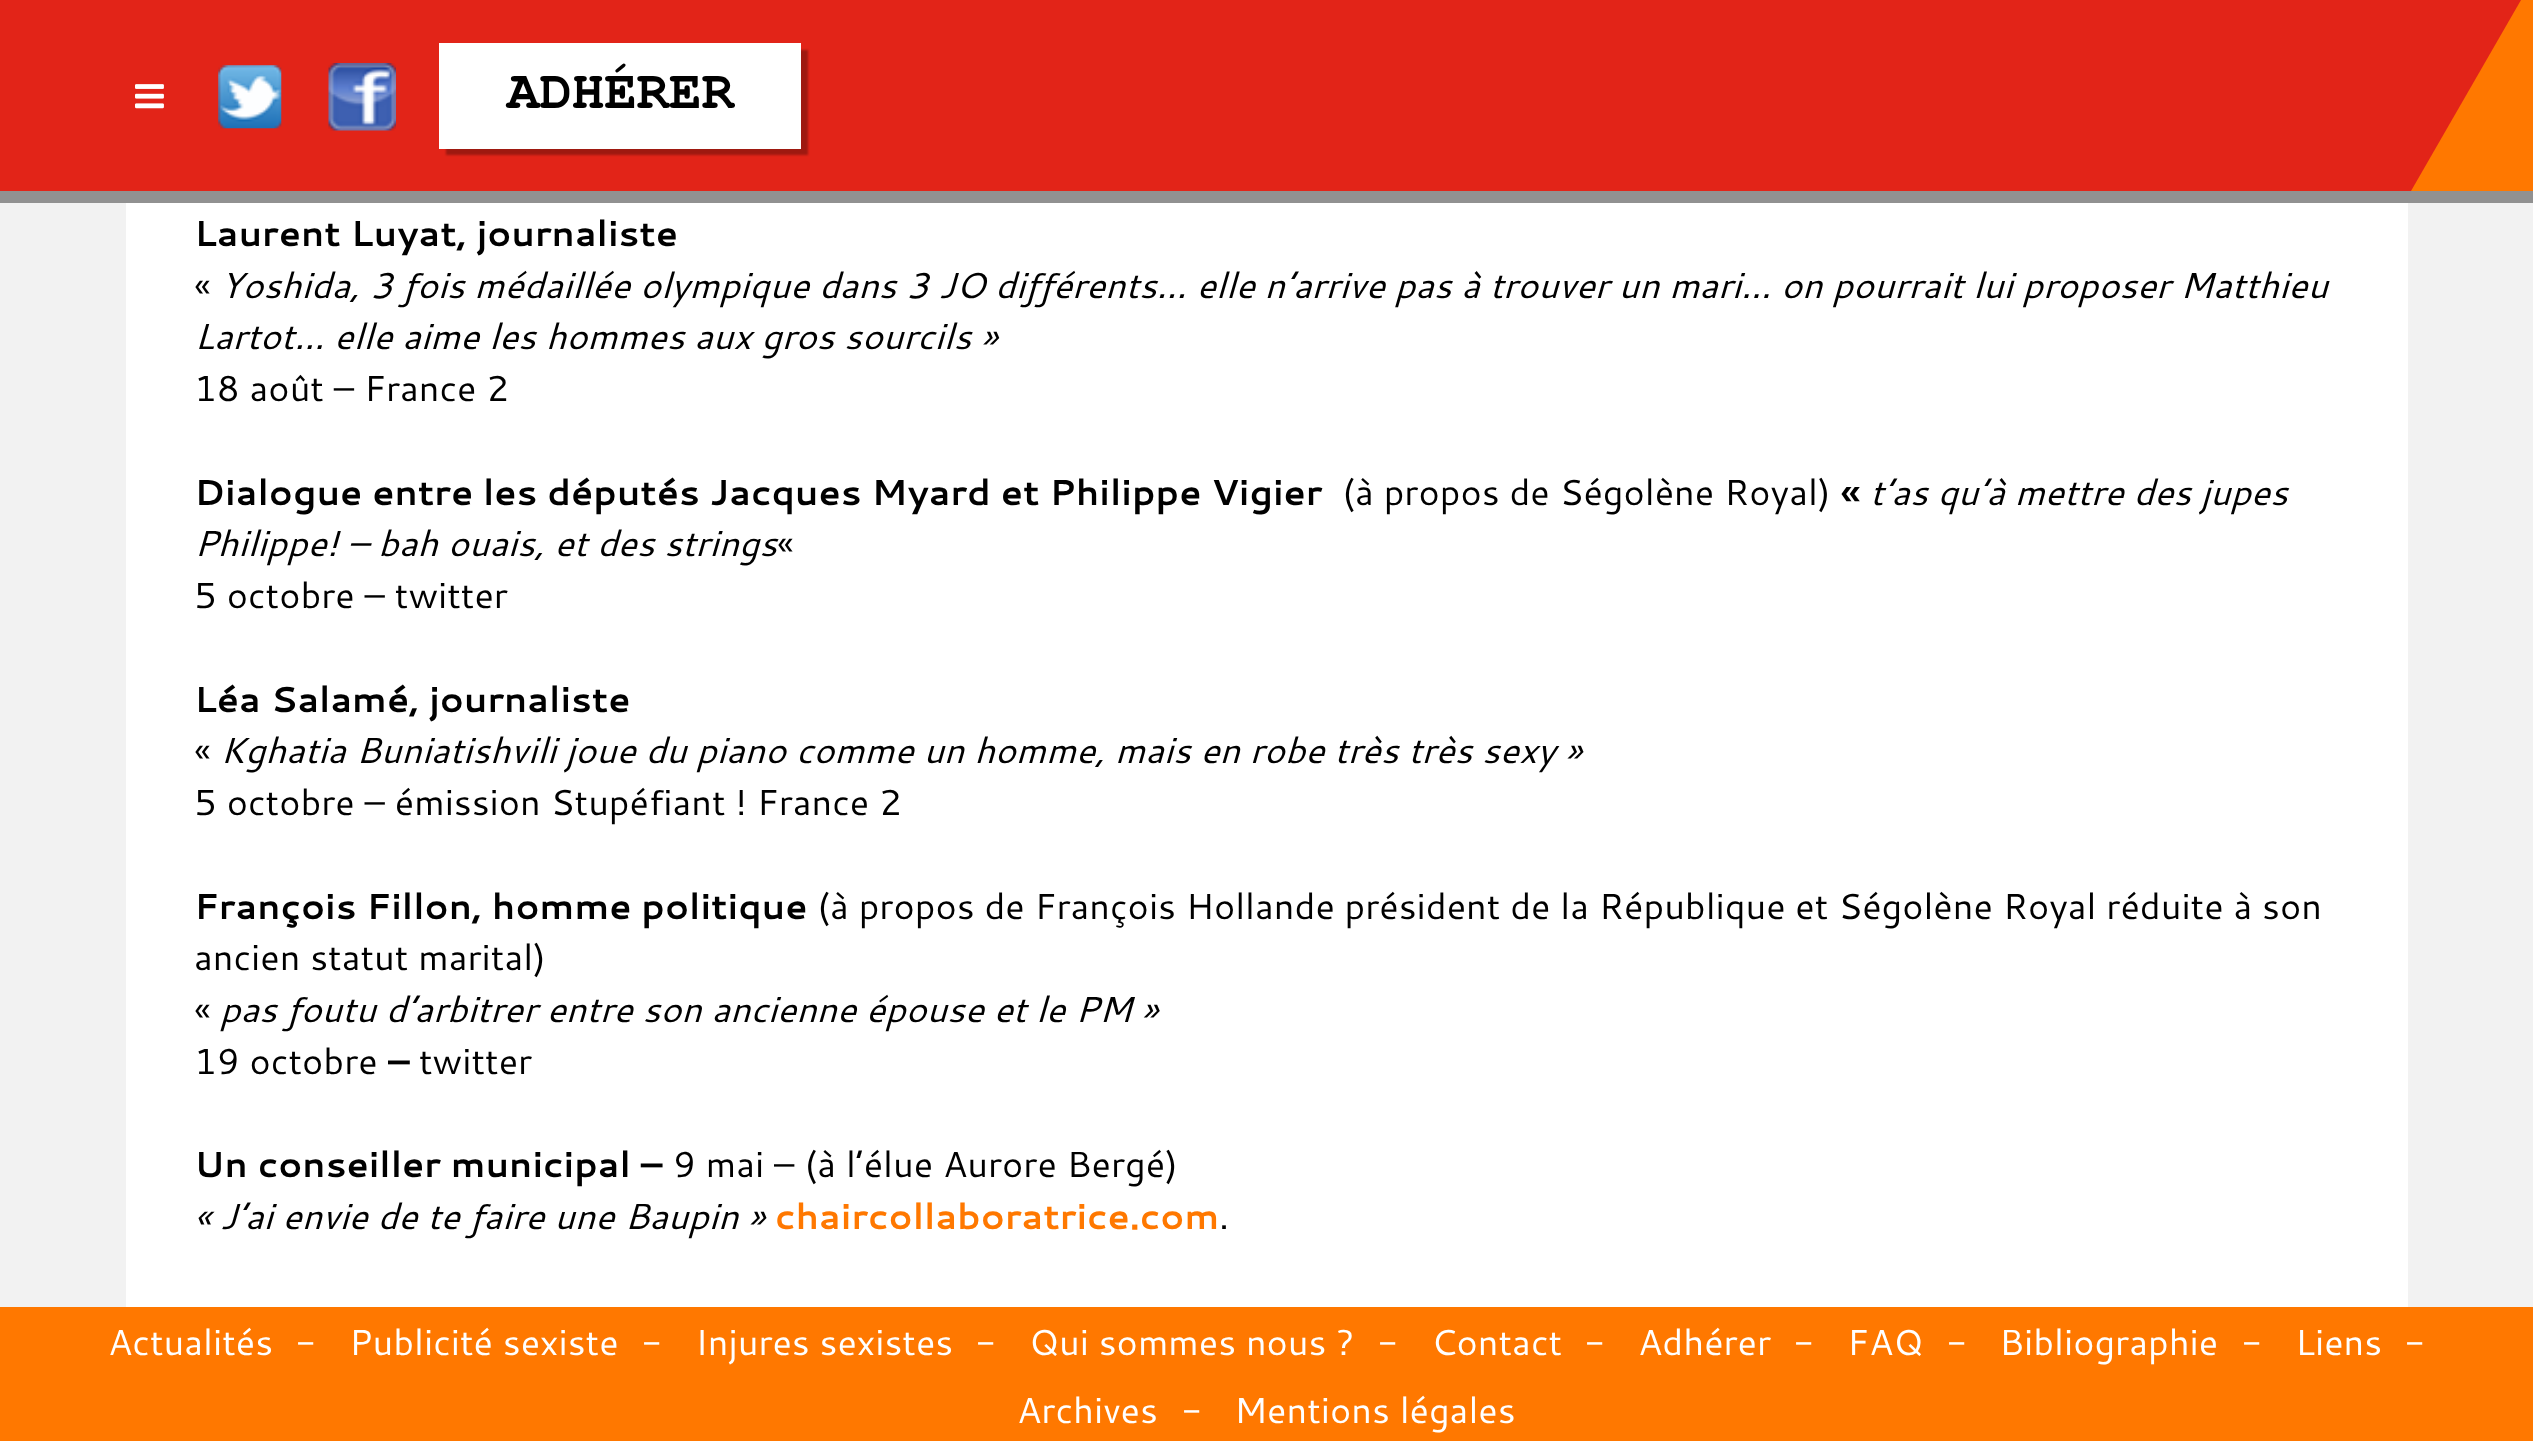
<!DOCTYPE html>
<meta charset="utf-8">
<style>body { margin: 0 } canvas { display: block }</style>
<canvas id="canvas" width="2533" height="1441"></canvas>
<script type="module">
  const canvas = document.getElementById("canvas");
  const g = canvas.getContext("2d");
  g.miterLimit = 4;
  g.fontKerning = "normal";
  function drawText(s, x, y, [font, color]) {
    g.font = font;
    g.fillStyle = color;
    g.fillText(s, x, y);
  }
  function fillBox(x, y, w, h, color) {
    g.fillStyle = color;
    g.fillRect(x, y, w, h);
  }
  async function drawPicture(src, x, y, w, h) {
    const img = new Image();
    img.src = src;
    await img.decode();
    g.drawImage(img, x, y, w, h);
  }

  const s1 = ["bold 54px Courier New", "#000000"];
  const s2 = ["bold 36px Cantarell", "#000000"];
  const s3 = ["36px Cantarell", "#000000"];
  const s4 = ["italic 36px Cantarell", "#000000"];
  const s5 = ["bold 36px Cantarell", "#FF7800"];
  const s6 = ["36px Cantarell", "#FFFFFF"];

  fillBox(0, 0, 2533, 1441, "#F2F2F2");
  fillBox(2411, 0, 122, 191, "#FF7800");
  fillBox(0, 191, 2533, 12, "#919191");
  g.fillStyle = "#E22418";
  g.beginPath();
  g.moveTo(-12, 0);
  g.lineTo(2521, 0);
  g.lineTo(2411, 191);
  g.lineTo(-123, 191);
  g.closePath();
  g.fill();
  await drawPicture("pic1.png", 135, 84, 29, 25);
  await drawPicture("pic2.png", 218, 65, 64, 64);
  await drawPicture("pic3.png", 328, 63, 68, 68);
  g.fillStyle = "rgba(0, 0, 0, 0.3)";
  g.filter = "blur(1px)";
  g.beginPath();
  g.rect(446, 50, 362, 105);
  g.fill();
  g.filter = "none";
  fillBox(439, 43, 362, 106, "#FFFFFF");
  drawText("ADHÉRER", 507, 108, s1);
  fillBox(126, 203, 2282, 1104, "#FFFFFF");
  drawText("Laurent Luyat, journaliste", 194, 246, s2);
  drawText("«", 194, 298, s3);
  drawText("Yoshida, 3 fois médaillée olympique dans 3 JO différents… elle n’arrive pas à trouver un mari… on pourrait lui proposer Matthieu", 220, 298, s4);
  drawText("Lartot… elle aime les hommes aux gros sourcils »", 194, 349, s4);
  drawText("18 août – France 2", 194, 401, s3);
  drawText("Dialogue entre les députés Jacques Myard et Philippe Vigier", 194, 505, s2);
  drawText("(à propos de Ségolène Royal)", 1342, 505, s3);
  drawText("«", 1841, 505, s2);
  drawText("t’as qu’à mettre des jupes", 1870, 505, s4);
  drawText("Philippe! – bah ouais, et des strings", 194, 556, s4);
  drawText("«", 777, 556, s3);
  drawText("5 octobre – twitter", 194, 608, s3);
  drawText("Léa Salamé, journaliste", 194, 712, s2);
  drawText("«", 194, 763, s3);
  drawText("Kghatia Buniatishvili joue du piano comme un homme, mais en robe très très sexy »", 220, 763, s4);
  drawText("5 octobre – émission Stupéfiant ! France 2", 194, 815, s3);
  drawText("François Fillon, homme politique", 194, 919, s2);
  drawText("(à propos de François Hollande président de la République et Ségolène Royal réduite à son", 817, 919, s3);
  drawText("ancien statut marital)", 194, 970, s3);
  drawText("«", 194, 1022, s3);
  drawText("pas foutu d’arbitrer entre son ancienne épouse et le PM »", 220, 1022, s4);
  drawText("19 octobre", 194, 1074, s3);
  drawText("–", 388, 1074, s2);
  drawText("twitter", 419, 1074, s3);
  drawText("Un conseiller municipal –", 194, 1177, s2);
  drawText("9 mai – (à l’élue Aurore Bergé)", 673, 1177, s3);
  drawText("« J’ai envie de te faire une Baupin »", 194, 1229, s4);
  drawText("chaircollaboratrice.com", 775, 1229, s5);
  drawText(".", 1219, 1229, s3);
  fillBox(0, 1307, 2533, 134, "#FF7800");
  drawText("Actualités", 108, 1355, s6);
  drawText("-", 295, 1355, s6);
  drawText("Publicité sexiste", 349, 1355, s6);
  drawText("-", 641, 1355, s6);
  drawText("Injures sexistes", 695, 1355, s6);
  drawText("-", 975, 1355, s6);
  drawText("Qui sommes nous ?", 1029, 1355, s6);
  drawText("-", 1377, 1355, s6);
  drawText("Contact", 1431, 1355, s6);
  drawText("-", 1584, 1355, s6);
  drawText("Adhérer", 1638, 1355, s6);
  drawText("-", 1793, 1355, s6);
  drawText("FAQ", 1847, 1355, s6);
  drawText("-", 1946, 1355, s6);
  drawText("Bibliographie", 1999, 1355, s6);
  drawText("-", 2241, 1355, s6);
  drawText("Liens", 2295, 1355, s6);
  drawText("-", 2404, 1355, s6);
  drawText("Archives", 1017, 1423, s6);
  drawText("-", 1181, 1423, s6);
  drawText("Mentions légales", 1234, 1423, s6);
</script>
